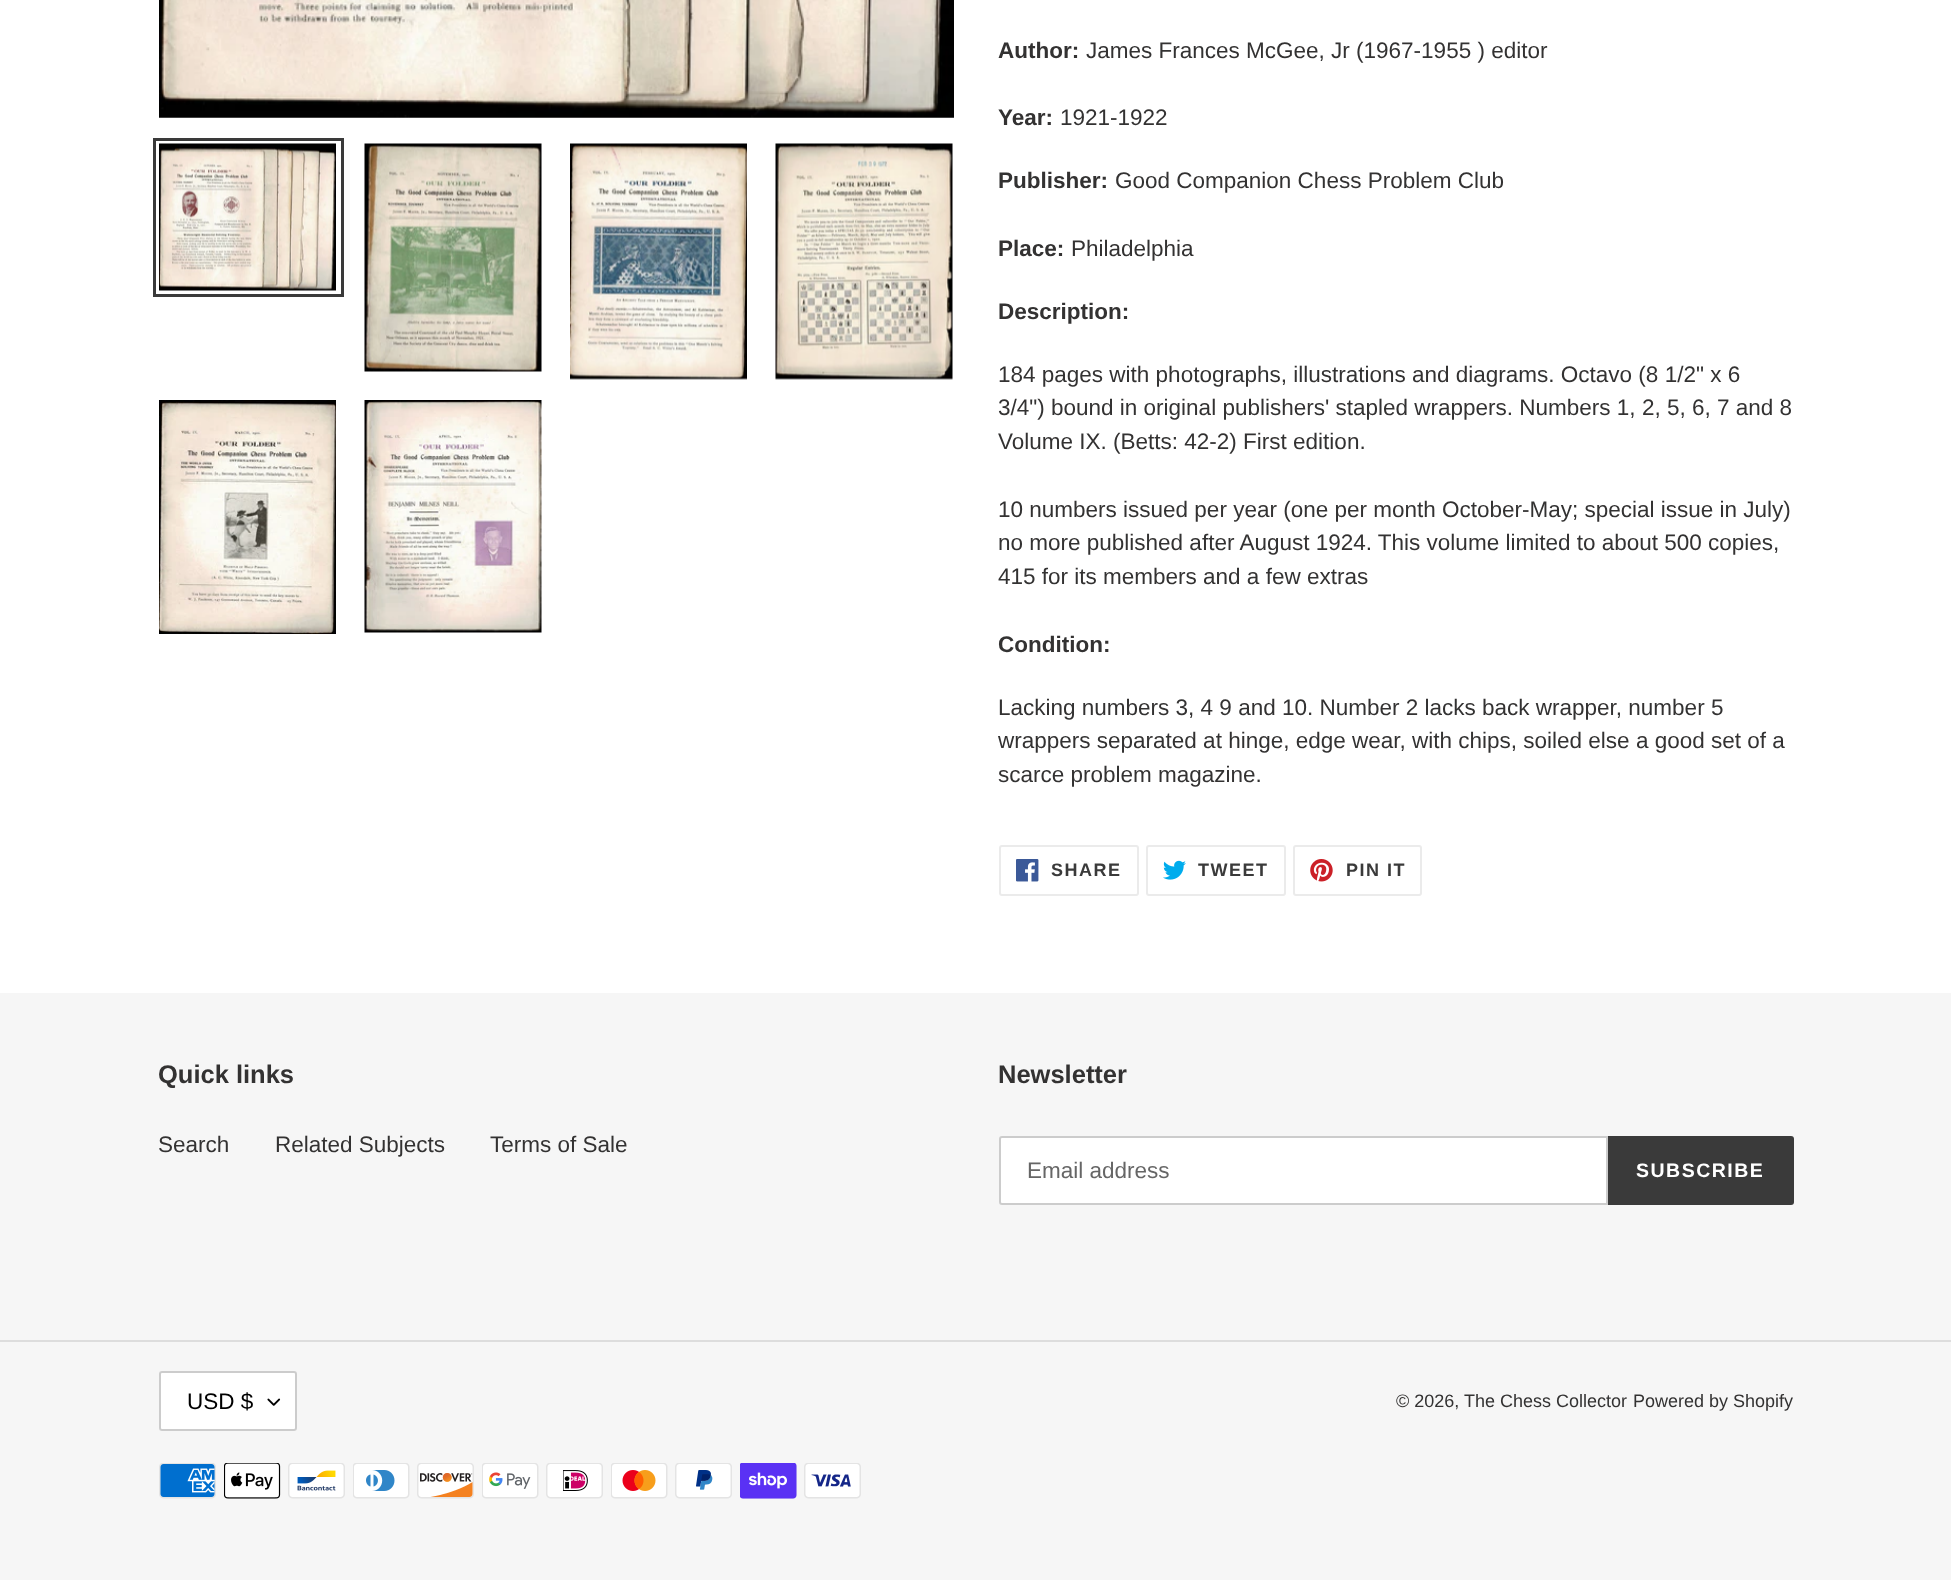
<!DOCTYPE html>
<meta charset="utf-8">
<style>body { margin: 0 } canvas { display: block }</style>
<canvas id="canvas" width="1951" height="1580"></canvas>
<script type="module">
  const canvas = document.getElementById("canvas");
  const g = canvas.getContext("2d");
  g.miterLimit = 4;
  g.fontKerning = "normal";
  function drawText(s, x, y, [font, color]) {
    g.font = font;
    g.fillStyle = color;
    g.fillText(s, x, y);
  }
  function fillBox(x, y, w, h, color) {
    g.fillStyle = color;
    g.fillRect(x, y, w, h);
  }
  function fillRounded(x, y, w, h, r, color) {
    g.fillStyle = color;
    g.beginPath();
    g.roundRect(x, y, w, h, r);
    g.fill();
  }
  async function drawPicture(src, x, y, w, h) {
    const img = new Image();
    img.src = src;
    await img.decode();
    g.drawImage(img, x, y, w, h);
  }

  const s1 = ["bold 22.5px Liberation Sans", "#333232"];
  const s2 = ["22.5px Liberation Sans", "#333232"];
  const s3 = ["bold 18px Liberation Sans", "#3A3A3A"];
  const s4 = ["bold 25.5px Liberation Sans", "#333232"];
  const s5 = ["22.5px Liberation Sans", "#666666"];
  const s6 = ["bold 19.5px Liberation Sans", "#FFFFFF"];
  const s7 = ["22.5px Liberation Sans", "#000000"];
  const s8 = ["18px Liberation Sans", "#333232"];

  fillBox(0, 0, 1951, 1580, "#FFFFFF");
  await drawPicture("pic1.png", 159, 0, 795, 118);
  g.strokeStyle = "#3A3A3A";
  g.lineWidth = 3;
  g.strokeRect(154.5, 139.5, 188, 156);
  await drawPicture("pic2.png", 159, 143, 177, 148);
  await drawPicture("pic3.png", 364, 143, 178, 229);
  await drawPicture("pic4.png", 570, 143, 177, 237);
  await drawPicture("pic5.png", 775, 143, 178, 237);
  await drawPicture("pic6.png", 159, 400, 177, 234);
  await drawPicture("pic7.png", 364, 400, 178, 233);
  drawText("Author:", 998, 58, s1);
  drawText("James Frances McGee, Jr (1967-1955 ) editor", 1086, 58, s2);
  drawText("Year:", 998, 125, s1);
  drawText("1921-1922", 1060, 125, s2);
  drawText("Publisher:", 998, 188, s1);
  drawText("Good Companion Chess Problem Club", 1115, 188, s2);
  drawText("Place:", 998, 256, s1);
  drawText("Philadelphia", 1071, 256, s2);
  drawText("Description:", 998, 319, s1);
  drawText("184 pages with photographs, illustrations and diagrams. Octavo (8 1/2\" x 6", 998, 382, s2);
  drawText("3/4\") bound in original publishers' stapled wrappers. Numbers 1, 2, 5, 6, 7 and 8", 998, 415, s2);
  drawText("Volume IX. (Betts: 42-2) First edition.", 998, 449, s2);
  drawText("10 numbers issued per year (one per month October-May; special issue in July)", 998, 517, s2);
  drawText("no more published after August 1924. This volume limited to about 500 copies,", 998, 550, s2);
  drawText("415 for its members and a few extras", 998, 584, s2);
  drawText("Condition:", 998, 652, s1);
  drawText("Lacking numbers 3, 4 9 and 10. Number 2 lacks back wrapper, number 5", 998, 715, s2);
  drawText("wrappers separated at hinge, edge wear, with chips, soiled else a good set of a", 998, 748, s2);
  drawText("scarce problem magazine.", 998, 782, s2);
  g.beginPath();
  g.roundRect(1000, 846, 138, 49, 2);
  g.strokeStyle = "#EBEBEB";
  g.lineWidth = 2;
  g.stroke();
  await drawPicture("pic8.png", 1016, 859, 23, 23);
  g.letterSpacing = "1.5px";
  drawText("SHARE", 1051, 876, s3);
  g.beginPath();
  g.roundRect(1147, 846, 138, 49, 2);
  g.stroke();
  await drawPicture("pic9.png", 1163, 860, 23, 20);
  drawText("TWEET", 1198, 876, s3);
  g.beginPath();
  g.roundRect(1294, 846, 127, 49, 2);
  g.stroke();
  await drawPicture("pic10.png", 1310, 859, 23, 23);
  drawText("PIN IT", 1346, 876, s3);
  fillBox(0, 993, 1951, 587, "#F6F6F6");
  g.letterSpacing = "0px";
  drawText("Quick links", 158, 1083, s4);
  drawText("Search", 158, 1152, s2);
  drawText("Related Subjects", 275, 1152, s2);
  drawText("Terms of Sale", 490, 1152, s2);
  drawText("Newsletter", 998, 1083, s4);
  g.fillStyle = "#FFFFFF";
  g.beginPath();
  g.roundRect(1000, 1137, 607, 67, [2, 0, 0, 2]);
  g.fill();
  g.strokeStyle = "#CCCCCC";
  g.stroke();
  drawText("Email address", 1027, 1178, s5);
  g.fillStyle = "#3A3A3A";
  g.beginPath();
  g.roundRect(1608, 1136, 186, 69, [0, 3, 3, 0]);
  g.fill();
  g.letterSpacing = "1.5px";
  drawText("SUBSCRIBE", 1636, 1177, s6);
  fillBox(0, 1340, 1951, 2, "#DDDDDD");
  fillRounded(159, 1371, 138, 60, 3, "#FFFFFF");
  await drawPicture("pic11.png", 267, 1398, 14, 8);
  g.beginPath();
  g.roundRect(160, 1372, 136, 58, 2);
  g.stroke();
  g.letterSpacing = "0px";
  drawText("USD $", 187, 1409, s7);
  drawText("© 2026,", 1396, 1407, s8);
  drawText("The Chess Collector", 1464, 1407, s8);
  drawText("Powered by Shopify", 1633, 1407, s8);
  await drawPicture("pic12.png", 159, 1463, 57, 36);
  await drawPicture("pic13.png", 224, 1463, 57, 36);
  await drawPicture("pic14.png", 288, 1463, 57, 36);
  await drawPicture("pic15.png", 353, 1463, 57, 36);
  await drawPicture("pic16.png", 417, 1463, 57, 36);
  await drawPicture("pic17.png", 482, 1463, 57, 36);
  await drawPicture("pic18.png", 546, 1463, 57, 36);
  await drawPicture("pic19.png", 611, 1463, 57, 36);
  await drawPicture("pic20.png", 675, 1463, 57, 36);
  await drawPicture("pic21.png", 740, 1463, 57, 36);
  await drawPicture("pic22.png", 804, 1463, 57, 36);
</script>
